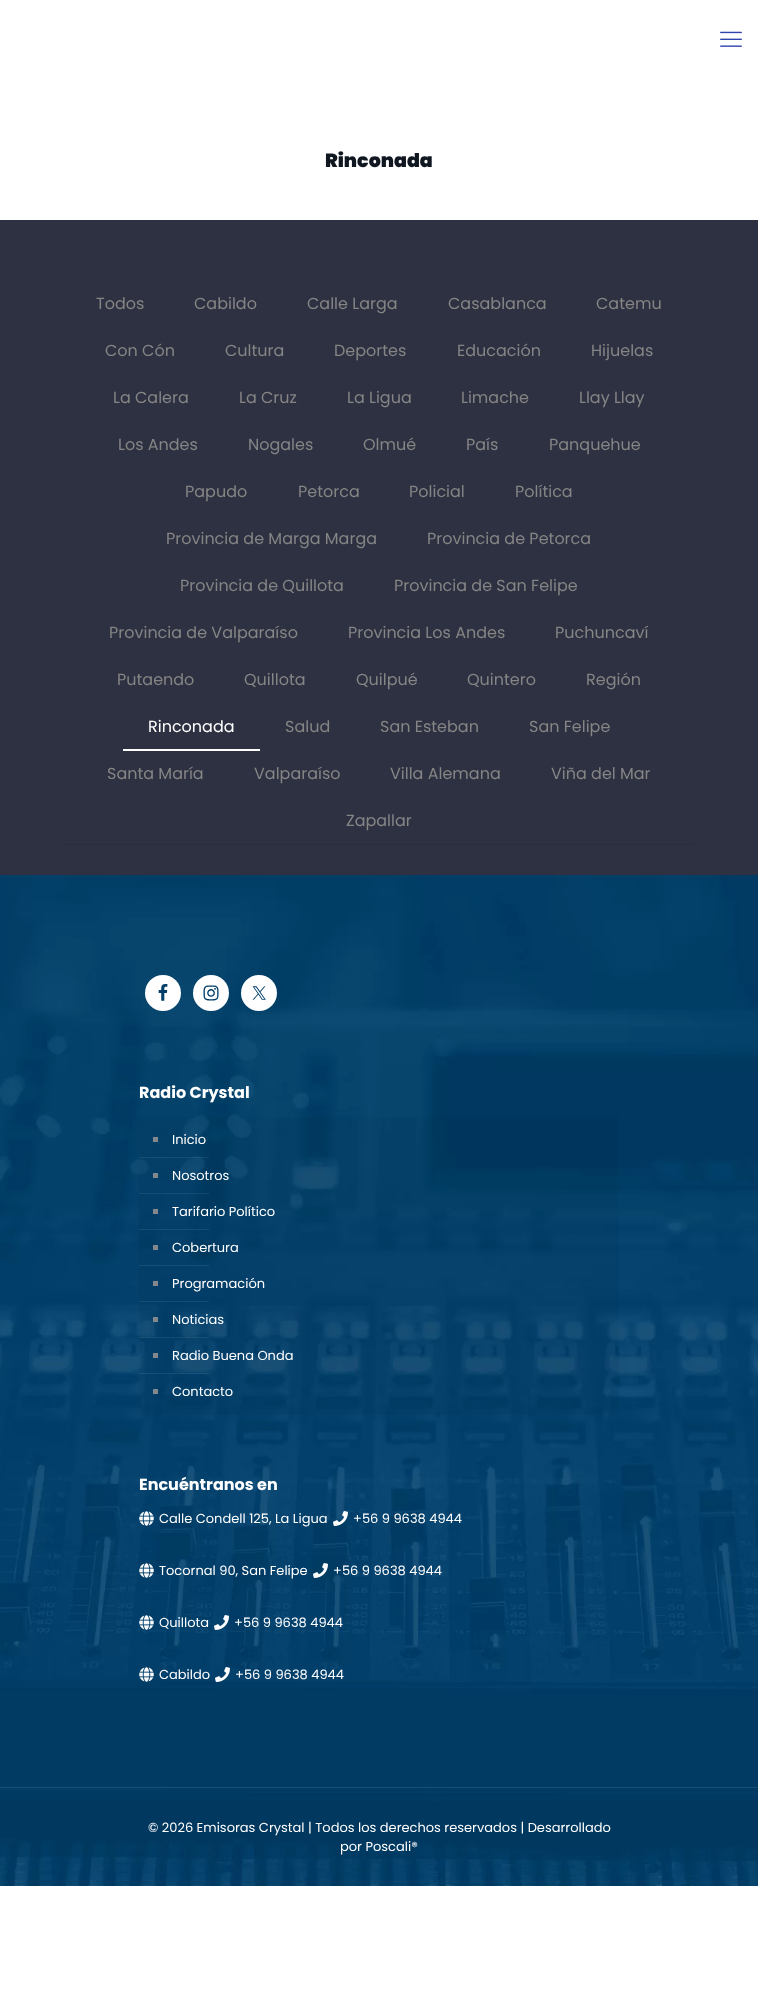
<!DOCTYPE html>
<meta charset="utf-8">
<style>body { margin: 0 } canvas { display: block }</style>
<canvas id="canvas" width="758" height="1996"></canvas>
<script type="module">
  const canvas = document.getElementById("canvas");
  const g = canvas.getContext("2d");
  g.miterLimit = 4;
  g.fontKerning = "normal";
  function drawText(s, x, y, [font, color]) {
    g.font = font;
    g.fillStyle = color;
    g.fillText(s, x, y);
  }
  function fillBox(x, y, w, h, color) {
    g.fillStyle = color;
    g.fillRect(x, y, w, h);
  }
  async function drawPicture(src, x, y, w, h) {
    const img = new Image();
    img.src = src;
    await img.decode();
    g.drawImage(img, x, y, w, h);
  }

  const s1 = ["900 19px Poppins", "#101720"];
  const s2 = ["16px Poppins", "#858585"];
  const s3 = ["16px Poppins", "#FFFFFF"];
  const s4 = ["bold 16px Poppins", "#FFFFFF"];
  const s5 = ["13px Poppins", "#FFFFFF"];

  fillBox(0, 0, 758, 1996, "#FFFFFF");
  await drawPicture("pic1.png", 720, 31, 22, 16);
  drawText("Rinconada", 325, 167, s1);
  fillBox(0, 220, 758, 655, "#2E3141");
  fillBox(63, 844, 632, 1, "#2A2D3C");
  drawText("Todos", 96, 309, s2);
  drawText("Cabildo", 194, 309, s2);
  drawText("Calle Larga", 307, 309, s2);
  drawText("Casablanca", 448, 309, s2);
  drawText("Catemu", 596, 309, s2);
  drawText("Con Cón", 105, 356, s2);
  drawText("Cultura", 225, 356, s2);
  drawText("Deportes", 334, 356, s2);
  drawText("Educación", 457, 356, s2);
  drawText("Hijuelas", 591, 356, s2);
  drawText("La Calera", 113, 403, s2);
  drawText("La Cruz", 239, 403, s2);
  drawText("La Ligua", 347, 403, s2);
  drawText("Limache", 461, 403, s2);
  drawText("Llay Llay", 579, 403, s2);
  drawText("Los Andes", 118, 450, s2);
  drawText("Nogales", 248, 450, s2);
  drawText("Olmué", 363, 450, s2);
  drawText("País", 466, 450, s2);
  drawText("Panquehue", 549, 450, s2);
  drawText("Papudo", 185, 497, s2);
  drawText("Petorca", 298, 497, s2);
  drawText("Policial", 409, 497, s2);
  drawText("Política", 515, 497, s2);
  drawText("Provincia de Marga Marga", 166, 544, s2);
  drawText("Provincia de Petorca", 427, 544, s2);
  drawText("Provincia de Quillota", 180, 591, s2);
  drawText("Provincia de San Felipe", 394, 591, s2);
  drawText("Provincia de Valparaíso", 109, 638, s2);
  drawText("Provincia Los Andes", 348, 638, s2);
  drawText("Puchuncaví", 555, 638, s2);
  drawText("Putaendo", 117, 685, s2);
  drawText("Quillota", 244, 685, s2);
  drawText("Quilpué", 356, 685, s2);
  drawText("Quintero", 467, 685, s2);
  drawText("Región", 586, 685, s2);
  drawText("Rinconada", 148, 732, s3);
  fillBox(123, 749, 137, 2, "#FFFFFF");
  drawText("Salud", 285, 732, s2);
  drawText("San Esteban", 380, 732, s2);
  drawText("San Felipe", 529, 732, s2);
  drawText("Santa María", 107, 779, s2);
  drawText("Valparaíso", 254, 779, s2);
  drawText("Villa Alemana", 390, 779, s2);
  drawText("Viña del Mar", 551, 779, s2);
  drawText("Zapallar", 346, 826, s2);
  await drawPicture("pic2.png", 0, 875, 758, 1011);
  g.fillStyle = "#FFFFFF";
  g.beginPath();
  g.arc(163, 993, 18, 0, Math.PI * 2);
  g.fill();
  await drawPicture("pic3.png", 158, 984, 10, 17);
  g.beginPath();
  g.arc(211, 993, 18, 0, Math.PI * 2);
  g.fill();
  await drawPicture("pic4.png", 203, 985, 16, 16);
  g.beginPath();
  g.arc(259, 993, 18, 0, Math.PI * 2);
  g.fill();
  await drawPicture("pic5.png", 252, 986, 14, 14);
  drawText("Radio Crystal", 139, 1098, s4);
  fillBox(139, 1117, 480, 298, "rgba(0, 0, 0, 0.03)");
  fillBox(153, 1137, 5, 5, "#84888C");
  drawText("Inicio", 172, 1144, s5);
  fillBox(139, 1157, 70, 1, "rgba(255, 255, 255, 0.08)");
  fillBox(153, 1173, 5, 5, "#84888C");
  drawText("Nosotros", 172, 1180, s5);
  fillBox(139, 1193, 70, 1, "rgba(255, 255, 255, 0.08)");
  fillBox(153, 1209, 5, 5, "#84888C");
  drawText("Tarifario Político", 172, 1216, s5);
  fillBox(139, 1229, 70, 1, "rgba(255, 255, 255, 0.08)");
  fillBox(153, 1245, 5, 5, "#84888C");
  drawText("Cobertura", 172, 1252, s5);
  fillBox(139, 1265, 70, 1, "#184F75");
  fillBox(153, 1281, 5, 5, "#84888C");
  drawText("Programación", 172, 1288, s5);
  fillBox(139, 1301, 70, 1, "rgba(255, 255, 255, 0.08)");
  fillBox(153, 1317, 5, 5, "#84888C");
  drawText("Noticias", 172, 1324, s5);
  fillBox(139, 1337, 70, 1, "rgba(255, 255, 255, 0.08)");
  fillBox(153, 1353, 5, 5, "#84888C");
  drawText("Radio Buena Onda", 172, 1360, s5);
  fillBox(139, 1373, 70, 1, "rgba(255, 255, 255, 0.08)");
  fillBox(153, 1389, 5, 5, "#84888C");
  drawText("Contacto", 172, 1396, s5);
  drawText("Encuéntranos en", 139, 1490, s4);
  await drawPicture("pic6.png", 139, 1511, 15, 15);
  drawText("Calle Condell 125, La Ligua", 159, 1523, s5);
  await drawPicture("pic7.png", 333, 1511, 15, 15);
  drawText("+56 9 9638 4944", 353, 1523, s5);
  await drawPicture("pic8.png", 139, 1563, 15, 15);
  drawText("Tocornal 90, San Felipe", 159, 1575, s5);
  await drawPicture("pic9.png", 313, 1563, 15, 15);
  drawText("+56 9 9638 4944", 333, 1575, s5);
  await drawPicture("pic10.png", 139, 1615, 15, 15);
  drawText("Quillota", 159, 1627, s5);
  await drawPicture("pic11.png", 214, 1615, 15, 15);
  drawText("+56 9 9638 4944", 234, 1627, s5);
  await drawPicture("pic12.png", 139, 1667, 15, 15);
  drawText("Cabildo", 159, 1679, s5);
  await drawPicture("pic13.png", 215, 1667, 15, 15);
  drawText("+56 9 9638 4944", 235, 1679, s5);
  fillBox(0, 1787, 758, 1, "#1A4E72");
  drawText("© 2026 Emisoras Crystal | Todos los derechos reservados | Desarrollado", 148, 1832, s5);
  drawText("por Poscali®", 340, 1851, s5);
</script>
